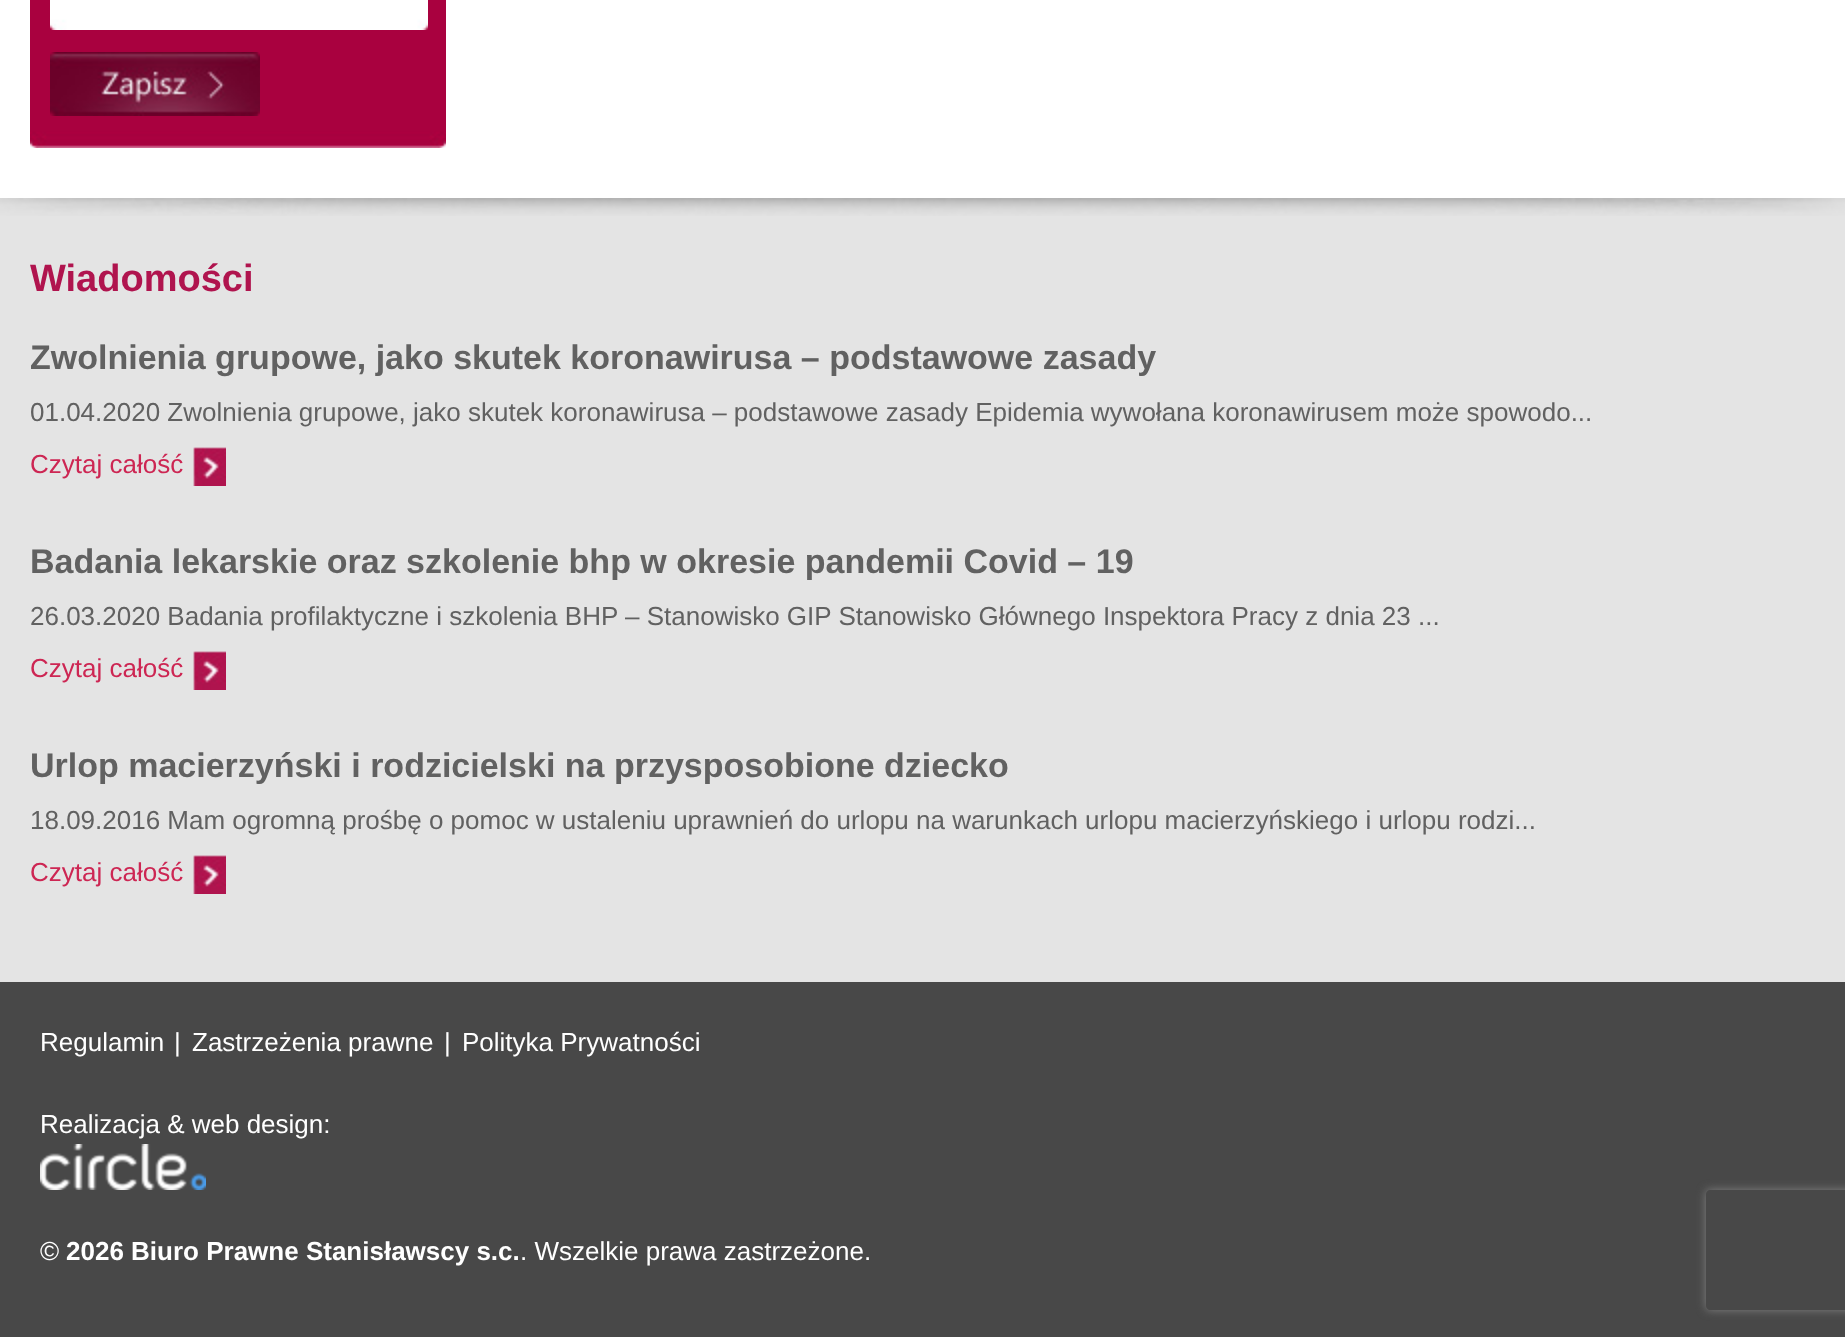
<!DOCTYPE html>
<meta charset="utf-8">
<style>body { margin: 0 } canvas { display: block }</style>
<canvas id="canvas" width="1845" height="1337"></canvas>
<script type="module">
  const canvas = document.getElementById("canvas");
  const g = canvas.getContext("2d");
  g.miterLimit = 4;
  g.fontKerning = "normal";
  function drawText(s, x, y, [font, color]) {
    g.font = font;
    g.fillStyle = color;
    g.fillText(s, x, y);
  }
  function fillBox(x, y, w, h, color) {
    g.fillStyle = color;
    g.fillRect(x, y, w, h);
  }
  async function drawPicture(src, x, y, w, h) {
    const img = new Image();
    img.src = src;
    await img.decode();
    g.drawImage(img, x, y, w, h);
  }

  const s1 = ["bold 38px Liberation Sans", "#B0144E"];
  const s2 = ["bold 34px Liberation Sans", "#616161"];
  const s3 = ["26px Liberation Sans", "#616161"];
  const s4 = ["26px Liberation Sans", "#CD2653"];
  const s5 = ["26px Liberation Sans", "#FFFFFF"];
  const s6 = ["bold 26px Liberation Sans", "#FFFFFF"];

  fillBox(0, 0, 1845, 1337, "#484848");
  fillBox(0, 0, 1845, 198, "#FFFFFF");
  await drawPicture("pic1.png", 30, 0, 416, 148);
  await drawPicture("pic2.png", 50, 0, 378, 30);
  await drawPicture("pic3.png", 50, 52, 210, 64);
  fillBox(0, 216, 1845, 766, "#E4E4E4");
  await drawPicture("pic4.png", 0, 198, 1845, 18);
  drawText("Wiadomości", 30, 291, s1);
  drawText("Zwolnienia grupowe, jako skutek koronawirusa – podstawowe zasady", 30, 369, s2);
  drawText("01.04.2020 Zwolnienia grupowe, jako skutek koronawirusa – podstawowe zasady Epidemia wywołana koronawirusem może spowodo...", 30, 421, s3);
  drawText("Czytaj całość", 30, 473, s4);
  await drawPicture("pic5.png", 193, 447, 33, 39);
  drawText("Badania lekarskie oraz szkolenie bhp w okresie pandemii Covid – 19", 30, 573, s2);
  drawText("26.03.2020 Badania profilaktyczne i szkolenia BHP – Stanowisko GIP Stanowisko Głównego Inspektora Pracy z dnia 23 ...", 30, 625, s3);
  drawText("Czytaj całość", 30, 677, s4);
  await drawPicture("pic5.png", 193, 651, 33, 39);
  drawText("Urlop macierzyński i rodzicielski na przysposobione dziecko", 30, 777, s2);
  drawText("18.09.2016 Mam ogromną prośbę o pomoc w ustaleniu uprawnień do urlopu na warunkach urlopu macierzyńskiego i urlopu rodzi...", 30, 829, s3);
  drawText("Czytaj całość", 30, 881, s4);
  await drawPicture("pic5.png", 193, 855, 33, 39);
  drawText("Regulamin", 40, 1051, s5);
  drawText("|", 174, 1051, s5);
  drawText("Zastrzeżenia prawne", 192, 1051, s5);
  drawText("|", 444, 1051, s5);
  drawText("Polityka Prywatności", 462, 1051, s5);
  drawText("Realizacja & web design:", 40, 1133, s5);
  await drawPicture("pic6.png", 40, 1144, 166, 46);
  drawText("©", 40, 1260, s5);
  drawText("2026 Biuro Prawne Stanisławscy s.c.", 66, 1260, s6);
  drawText(". Wszelkie prawa zastrzeżone.", 520, 1260, s5);
  g.save();
  g.beginPath();
  g.moveTo(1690, 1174);
  g.lineTo(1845, 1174);
  g.lineTo(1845, 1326);
  g.lineTo(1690, 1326);
  g.closePath();
  g.moveTo(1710, 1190);
  g.lineTo(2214, 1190);
  g.bezierCurveTo(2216, 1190, 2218, 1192, 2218, 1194);
  g.lineTo(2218, 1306);
  g.bezierCurveTo(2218, 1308, 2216, 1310, 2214, 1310);
  g.lineTo(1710, 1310);
  g.bezierCurveTo(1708, 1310, 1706, 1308, 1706, 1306);
  g.lineTo(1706, 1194);
  g.bezierCurveTo(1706, 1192, 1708, 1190, 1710, 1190);
  g.closePath();
  g.clip("evenodd");
  g.fillStyle = "#808080";
  g.filter = "blur(5px)";
  g.beginPath();
  g.roundRect(1706, 1190, 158, 120, 4);
  g.fill();
  g.filter = "none";
  g.restore();
</script>
